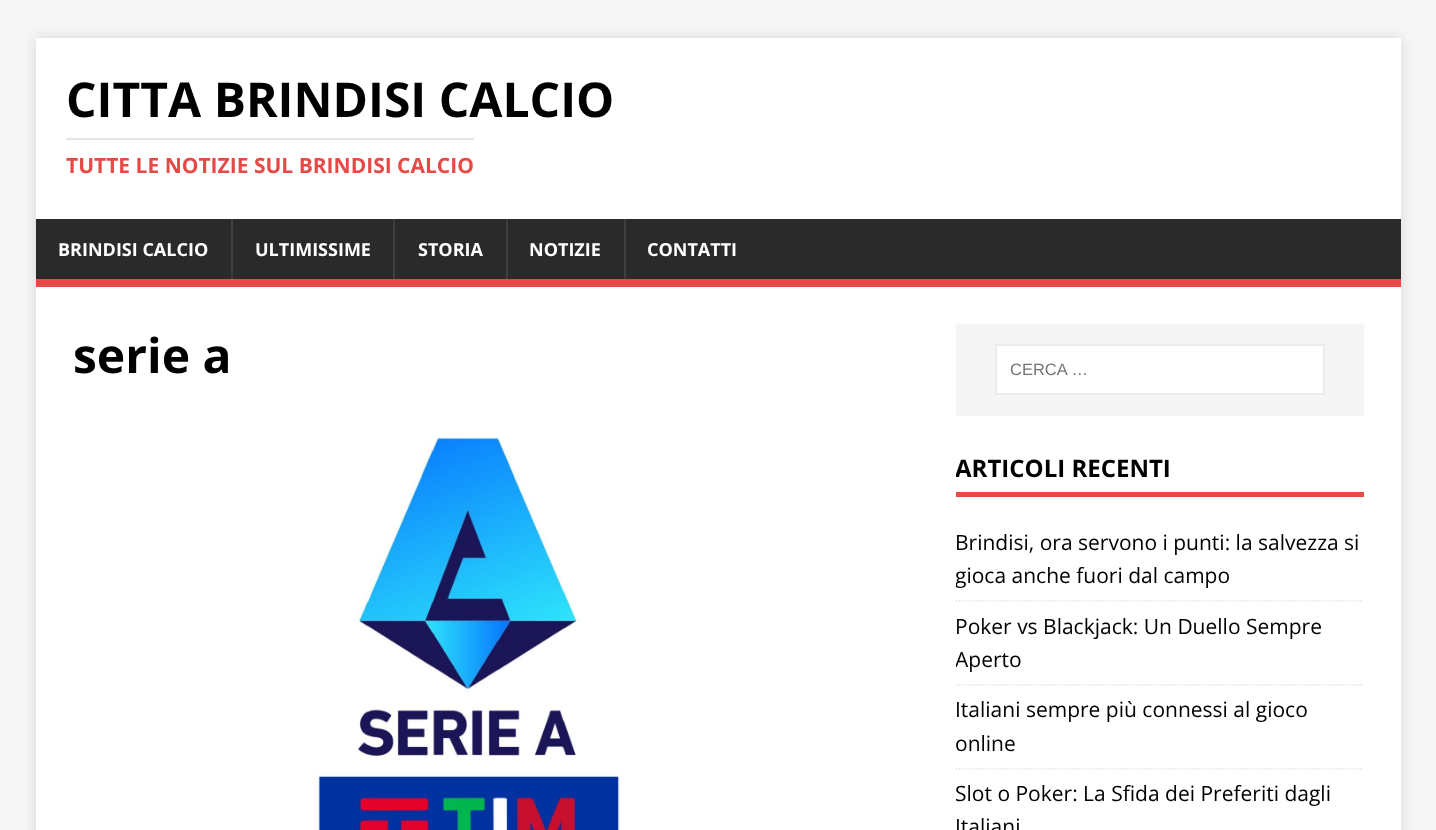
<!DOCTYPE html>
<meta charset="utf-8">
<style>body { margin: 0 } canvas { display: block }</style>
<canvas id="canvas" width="1436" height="830"></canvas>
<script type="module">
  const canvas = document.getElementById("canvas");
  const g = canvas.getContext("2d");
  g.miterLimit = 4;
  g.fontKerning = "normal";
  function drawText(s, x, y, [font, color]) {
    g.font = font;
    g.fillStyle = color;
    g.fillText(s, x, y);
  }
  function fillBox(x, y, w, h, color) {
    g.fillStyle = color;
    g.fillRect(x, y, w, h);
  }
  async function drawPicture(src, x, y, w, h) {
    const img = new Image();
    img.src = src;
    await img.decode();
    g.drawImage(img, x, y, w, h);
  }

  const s1 = ["bold 48px Open Sans", "#000000"];
  const s2 = ["bold 21px Open Sans", "#E64946"];
  const s3 = ["bold 18px Open Sans", "#FFFFFF"];
  const s4 = ["16.5px Liberation Sans", "#757575"];
  const s5 = ["bold 24px Open Sans", "#000000"];
  const s6 = ["21px Open Sans", "#000000"];

  fillBox(0, 0, 1436, 830, "#F7F7F7");
  g.fillStyle = "rgba(50, 50, 50, 0.17)";
  g.filter = "blur(7.5px)";
  g.beginPath();
  g.rect(36, 38, 1365, 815);
  g.fill();
  g.filter = "none";
  fillBox(36, 38, 1365, 181, "#FFFFFF");
  drawText("CITTA BRINDISI CALCIO", 66, 117, s1);
  fillBox(66, 138, 408, 2, "#E5E5E5");
  drawText("TUTTE LE NOTIZIE SUL BRINDISI CALCIO", 66, 173, s2);
  fillBox(36, 219, 1365, 60, "#2A2A2A");
  fillBox(36, 279, 1365, 8, "#E64946");
  drawText("BRINDISI CALCIO", 58, 256, s3);
  fillBox(231, 219, 2, 60, "#3F3F3F");
  drawText("ULTIMISSIME", 255, 256, s3);
  fillBox(393, 219, 2, 60, "#3F3F3F");
  drawText("STORIA", 418, 256, s3);
  fillBox(506, 219, 2, 60, "#3F3F3F");
  drawText("NOTIZIE", 529, 256, s3);
  fillBox(624, 219, 2, 60, "#3F3F3F");
  drawText("CONTATTI", 647, 256, s3);
  fillBox(36, 287, 1365, 543, "#FFFFFF");
  drawText("serie a", 73, 373, s1);
  await drawPicture("pic1.png", 316, 437, 304, 393);
  fillBox(956, 324, 408, 92, "#F5F5F5");
  g.fillStyle = "#FFFFFF";
  g.beginPath();
  g.rect(996, 345, 328, 49);
  g.fill();
  g.strokeStyle = "#EBEBEB";
  g.lineWidth = 2;
  g.stroke();
  drawText("CERCA …", 1010, 375, s4);
  fillBox(956, 492, 408, 5, "#E64946");
  g.save();
  g.beginPath();
  g.rect(956, 453, 408, 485);
  g.clip();
  drawText("ARTICOLI RECENTI", 955, 477, s5);
  g.restore();
  g.beginPath();
  g.moveTo(955.5, 601);
  g.lineTo(1363.5, 601);
  g.strokeStyle = "#E5E5E5";
  g.lineWidth = 1.5;
  g.setLineDash([1.5, 1.5]);
  g.stroke();
  drawText("Brindisi, ora servono i punti: la salvezza si", 955, 550, s6);
  g.save();
  g.beginPath();
  g.rect(956, 453, 408, 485);
  g.clip();
  drawText("gioca anche fuori dal campo", 955, 583, s6);
  g.restore();
  g.beginPath();
  g.moveTo(955.5, 685);
  g.lineTo(1363.5, 685);
  g.stroke();
  drawText("Poker vs Blackjack: Un Duello Sempre", 955, 634, s6);
  g.save();
  g.beginPath();
  g.rect(956, 453, 408, 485);
  g.clip();
  drawText("Aperto", 955, 667, s6);
  g.restore();
  g.beginPath();
  g.moveTo(955.5, 769);
  g.lineTo(1363.5, 769);
  g.stroke();
  drawText("Italiani sempre più connessi al gioco", 955, 717, s6);
  drawText("online", 955, 751, s6);
  drawText("Slot o Poker: La Sfida dei Preferiti dagli", 955, 801, s6);
  drawText("Italiani", 955, 834, s6);
</script>
